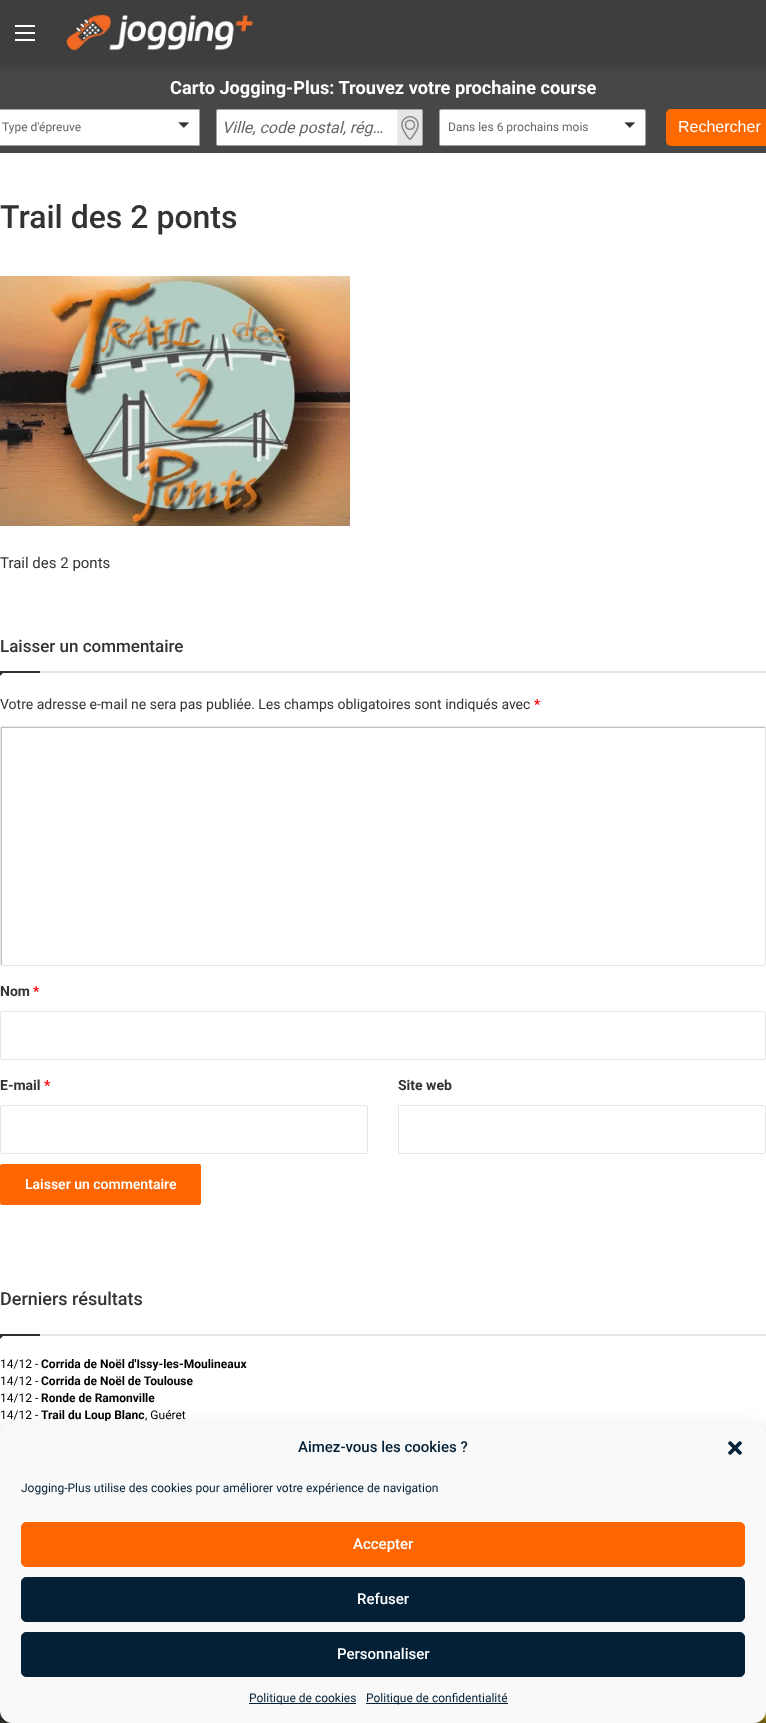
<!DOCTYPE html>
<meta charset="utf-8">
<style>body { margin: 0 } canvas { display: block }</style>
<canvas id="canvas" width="766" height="1723"></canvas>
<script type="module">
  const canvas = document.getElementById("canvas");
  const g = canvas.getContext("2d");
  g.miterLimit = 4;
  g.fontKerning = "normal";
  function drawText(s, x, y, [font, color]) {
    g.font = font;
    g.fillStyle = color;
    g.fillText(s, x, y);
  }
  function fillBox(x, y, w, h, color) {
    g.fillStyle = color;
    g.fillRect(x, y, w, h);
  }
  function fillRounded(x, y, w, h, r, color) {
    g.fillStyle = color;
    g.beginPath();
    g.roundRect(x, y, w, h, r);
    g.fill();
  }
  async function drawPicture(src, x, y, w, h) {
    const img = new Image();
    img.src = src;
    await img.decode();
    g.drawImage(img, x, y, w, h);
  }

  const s1 = ["bold 18.2px Roboto", "#FFFFFF"];
  const s2 = ["12px Roboto", "#666666"];
  const s3 = ["italic 16px Roboto", "#666666"];
  const s4 = ["16px Liberation Sans", "#FFFFFF"];
  const s5 = ["500 32px Roboto", "#333333"];
  const s6 = ["15px Roboto", "#333333"];
  const s7 = ["500 17px Roboto", "#333333"];
  const s8 = ["14px Roboto", "#333333"];
  const s9 = ["bold 14px Roboto", "#FF0000"];
  const s10 = ["bold 14px Roboto", "#333333"];
  const s11 = ["600 14px Roboto", "#FFFFFF"];
  const s12 = ["500 18px Roboto", "#333333"];
  const s13 = ["12px Roboto", "#000000"];
  const s14 = ["bold 12px Roboto", "#000000"];
  const s15 = ["500 15px Roboto", "#032036"];
  const s16 = ["12px Roboto", "#032036"];
  const s17 = ["500 15px Roboto", "#FFFFFF"];

  fillBox(0, 0, 766, 1723, "#FFFFFF");
  fillBox(0, 65, 766, 88, "#474747");
  g.fillStyle = "rgba(0, 0, 0, 0.1)";
  g.filter = "blur(3.5px)";
  g.beginPath();
  g.rect(0, 3, 766, 65);
  g.fill();
  g.filter = "none";
  fillBox(0, 0, 766, 65, "#3E3E3E");
  fillBox(15, 32, 20, 2, "#FFFFFF");
  fillBox(15, 25, 20, 2, "#FFFFFF");
  fillBox(15, 39, 20, 2, "#FFFFFF");
  await drawPicture("pic1.png", 65, 14, 189, 37);
  drawText("Carto Jogging-Plus: Trouvez votre prochaine course", 170, 94, s1);
  g.beginPath();
  g.roundRect(0, 109, 200, 37, [0, 2, 2, 0]);
  g.fill();
  g.beginPath();
  g.roundRect(-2.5, 109.5, 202, 36, 1.5);
  g.strokeStyle = "#A4A4A4";
  g.stroke();
  drawText("Type d'épreuve", 2, 131, s2);
  await drawPicture("pic2.png", 178, 122, 12, 6);
  g.fillStyle = "#FFFFFF";
  g.beginPath();
  g.roundRect(216.5, 109.5, 206, 36, 1.5);
  g.fill();
  g.stroke();
  drawText("Ville, code postal, rég…", 222, 133, s3);
  fillBox(398, 110, 24, 35, "#E6E6E6");
  await drawPicture("pic3.png", 401, 116, 18, 24);
  fillBox(397, 110, 1, 35, "#EEEEEE");
  g.fillStyle = "#FFFFFF";
  g.beginPath();
  g.roundRect(439.5, 109.5, 206, 36, 1.5);
  g.fill();
  g.stroke();
  drawText("Dans les 6 prochains mois", 448, 131, s2);
  await drawPicture("pic2.png", 624, 122, 12, 6);
  g.fillStyle = "#FF6A00";
  g.beginPath();
  g.roundRect(666, 109, 100, 37, [5, 0, 0, 5]);
  g.fill();
  drawText("Rechercher", 678, 132, s4);
  drawText("Trail des 2 ponts", 0, 228, s5);
  await drawPicture("pic4.png", 0, 276, 350, 250);
  drawText("Trail des 2 ponts", 0, 568, s6);
  fillBox(40, 671, 726, 2, "#E6E6E6");
  drawText("Laisser un commentaire", 0, 652, s7);
  g.fillStyle = "#2C2F34";
  g.beginPath();
  g.moveTo(0, 671);
  g.lineTo(5, 671);
  g.lineTo(0, 676);
  g.closePath();
  g.fill();
  fillBox(0, 671, 40, 2, "#2C2F34");
  drawText("Votre adresse e-mail ne sera pas publiée. Les champs obligatoires sont indiqués avec", 0, 709, s8);
  drawText("*", 534, 709, s9);
  g.fillStyle = "#C0C0C0";
  g.beginPath();
  g.moveTo(3, 728);
  g.lineTo(765, 728);
  g.bezierCurveTo(765, 727, 765, 727, 764, 727);
  g.lineTo(2, 727);
  g.bezierCurveTo(1, 727, 1, 727, 1, 728);
  g.lineTo(1, 964);
  g.bezierCurveTo(1, 965, 1, 965, 2, 965);
  g.lineTo(2, 728);
  g.closePath();
  g.fill();
  g.beginPath();
  g.roundRect(0.5, 726.5, 765, 239, 1.5);
  g.strokeStyle = "#E6E6E6";
  g.stroke();
  drawText("Nom", 0, 996, s10);
  drawText("*", 33, 996, s9);
  g.beginPath();
  g.roundRect(0.5, 1011.5, 765, 48, 1.5);
  g.stroke();
  drawText("E-mail", 0, 1090, s10);
  drawText("*", 44, 1090, s9);
  g.beginPath();
  g.roundRect(0.5, 1105.5, 367, 48, 1.5);
  g.stroke();
  drawText("Site web", 398, 1090, s10);
  g.beginPath();
  g.roundRect(398.5, 1105.5, 367, 48, 1.5);
  g.stroke();
  fillRounded(0, 1164, 201, 41, 2, "#FF6500");
  drawText("Laisser un commentaire", 25, 1189, s11);
  fillBox(40, 1334, 726, 2, "#E6E6E6");
  drawText("Derniers résultats", 0, 1305, s12);
  g.fillStyle = "#2C2F34";
  g.beginPath();
  g.moveTo(0, 1334);
  g.lineTo(5, 1334);
  g.lineTo(0, 1339);
  g.closePath();
  g.fill();
  fillBox(0, 1334, 40, 2, "#2C2F34");
  drawText("14/12 -", 0, 1368, s13);
  drawText("Corrida de Noël d'Issy-les-Moulineaux", 41, 1368, s14);
  drawText("14/12 -", 0, 1385, s13);
  drawText("Corrida de Noël de Toulouse", 41, 1385, s14);
  drawText("14/12 -", 0, 1402, s13);
  drawText("Ronde de Ramonville", 41, 1402, s14);
  drawText("14/12 -", 0, 1419, s13);
  drawText("Trail du Loup Blanc", 41, 1419, s14);
  drawText(", Guéret", 145, 1419, s13);
  await drawPicture("pic5.png", 0, 1711, 12, 12);
  await drawPicture("pic6.png", 754, 1711, 12, 12);
  g.fillStyle = "rgba(0, 0, 0, 0.23)";
  g.filter = "blur(3px)";
  g.beginPath();
  g.roundRect(0, 1427, 766, 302, 12);
  g.fill();
  g.filter = "none";
  g.fillStyle = "rgba(0, 0, 0, 0.19)";
  g.filter = "blur(10px)";
  g.beginPath();
  g.roundRect(0, 1431, 766, 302, 12);
  g.fill();
  g.filter = "none";
  g.fillStyle = "#F9F9F9";
  g.beginPath();
  g.roundRect(0.5, 1421.5, 765, 301, 11.5);
  g.fill();
  g.strokeStyle = "#F9F9F9";
  g.stroke();
  drawText("Aimez-vous les cookies ?", 298, 1452, s15);
  await drawPicture("pic7.png", 728, 1441, 14, 14);
  drawText("Jogging-Plus utilise des cookies pour améliorer votre expérience de navigation", 21, 1492, s16);
  g.fillStyle = "#FF6600";
  g.beginPath();
  g.roundRect(21.5, 1522.5, 723, 44, 4.5);
  g.fill();
  g.strokeStyle = "#FF6600";
  g.stroke();
  drawText("Accepter", 353, 1549, s17);
  g.fillStyle = "#032036";
  g.beginPath();
  g.roundRect(21.5, 1577.5, 723, 44, 4.5);
  g.fill();
  g.strokeStyle = "#032036";
  g.stroke();
  drawText("Refuser", 357, 1604, s17);
  g.fillStyle = "#032036";
  g.beginPath();
  g.roundRect(21.5, 1632.5, 723, 44, 4.5);
  g.fill();
  g.stroke();
  drawText("Personnaliser", 337, 1659, s17);
  fillBox(249, 1703, 107, 1, "#032036");
  drawText("Politique de cookies", 249, 1702, s16);
  fillBox(366, 1703, 142, 1, "#032036");
  drawText("Politique de confidentialité", 366, 1702, s16);
</script>
